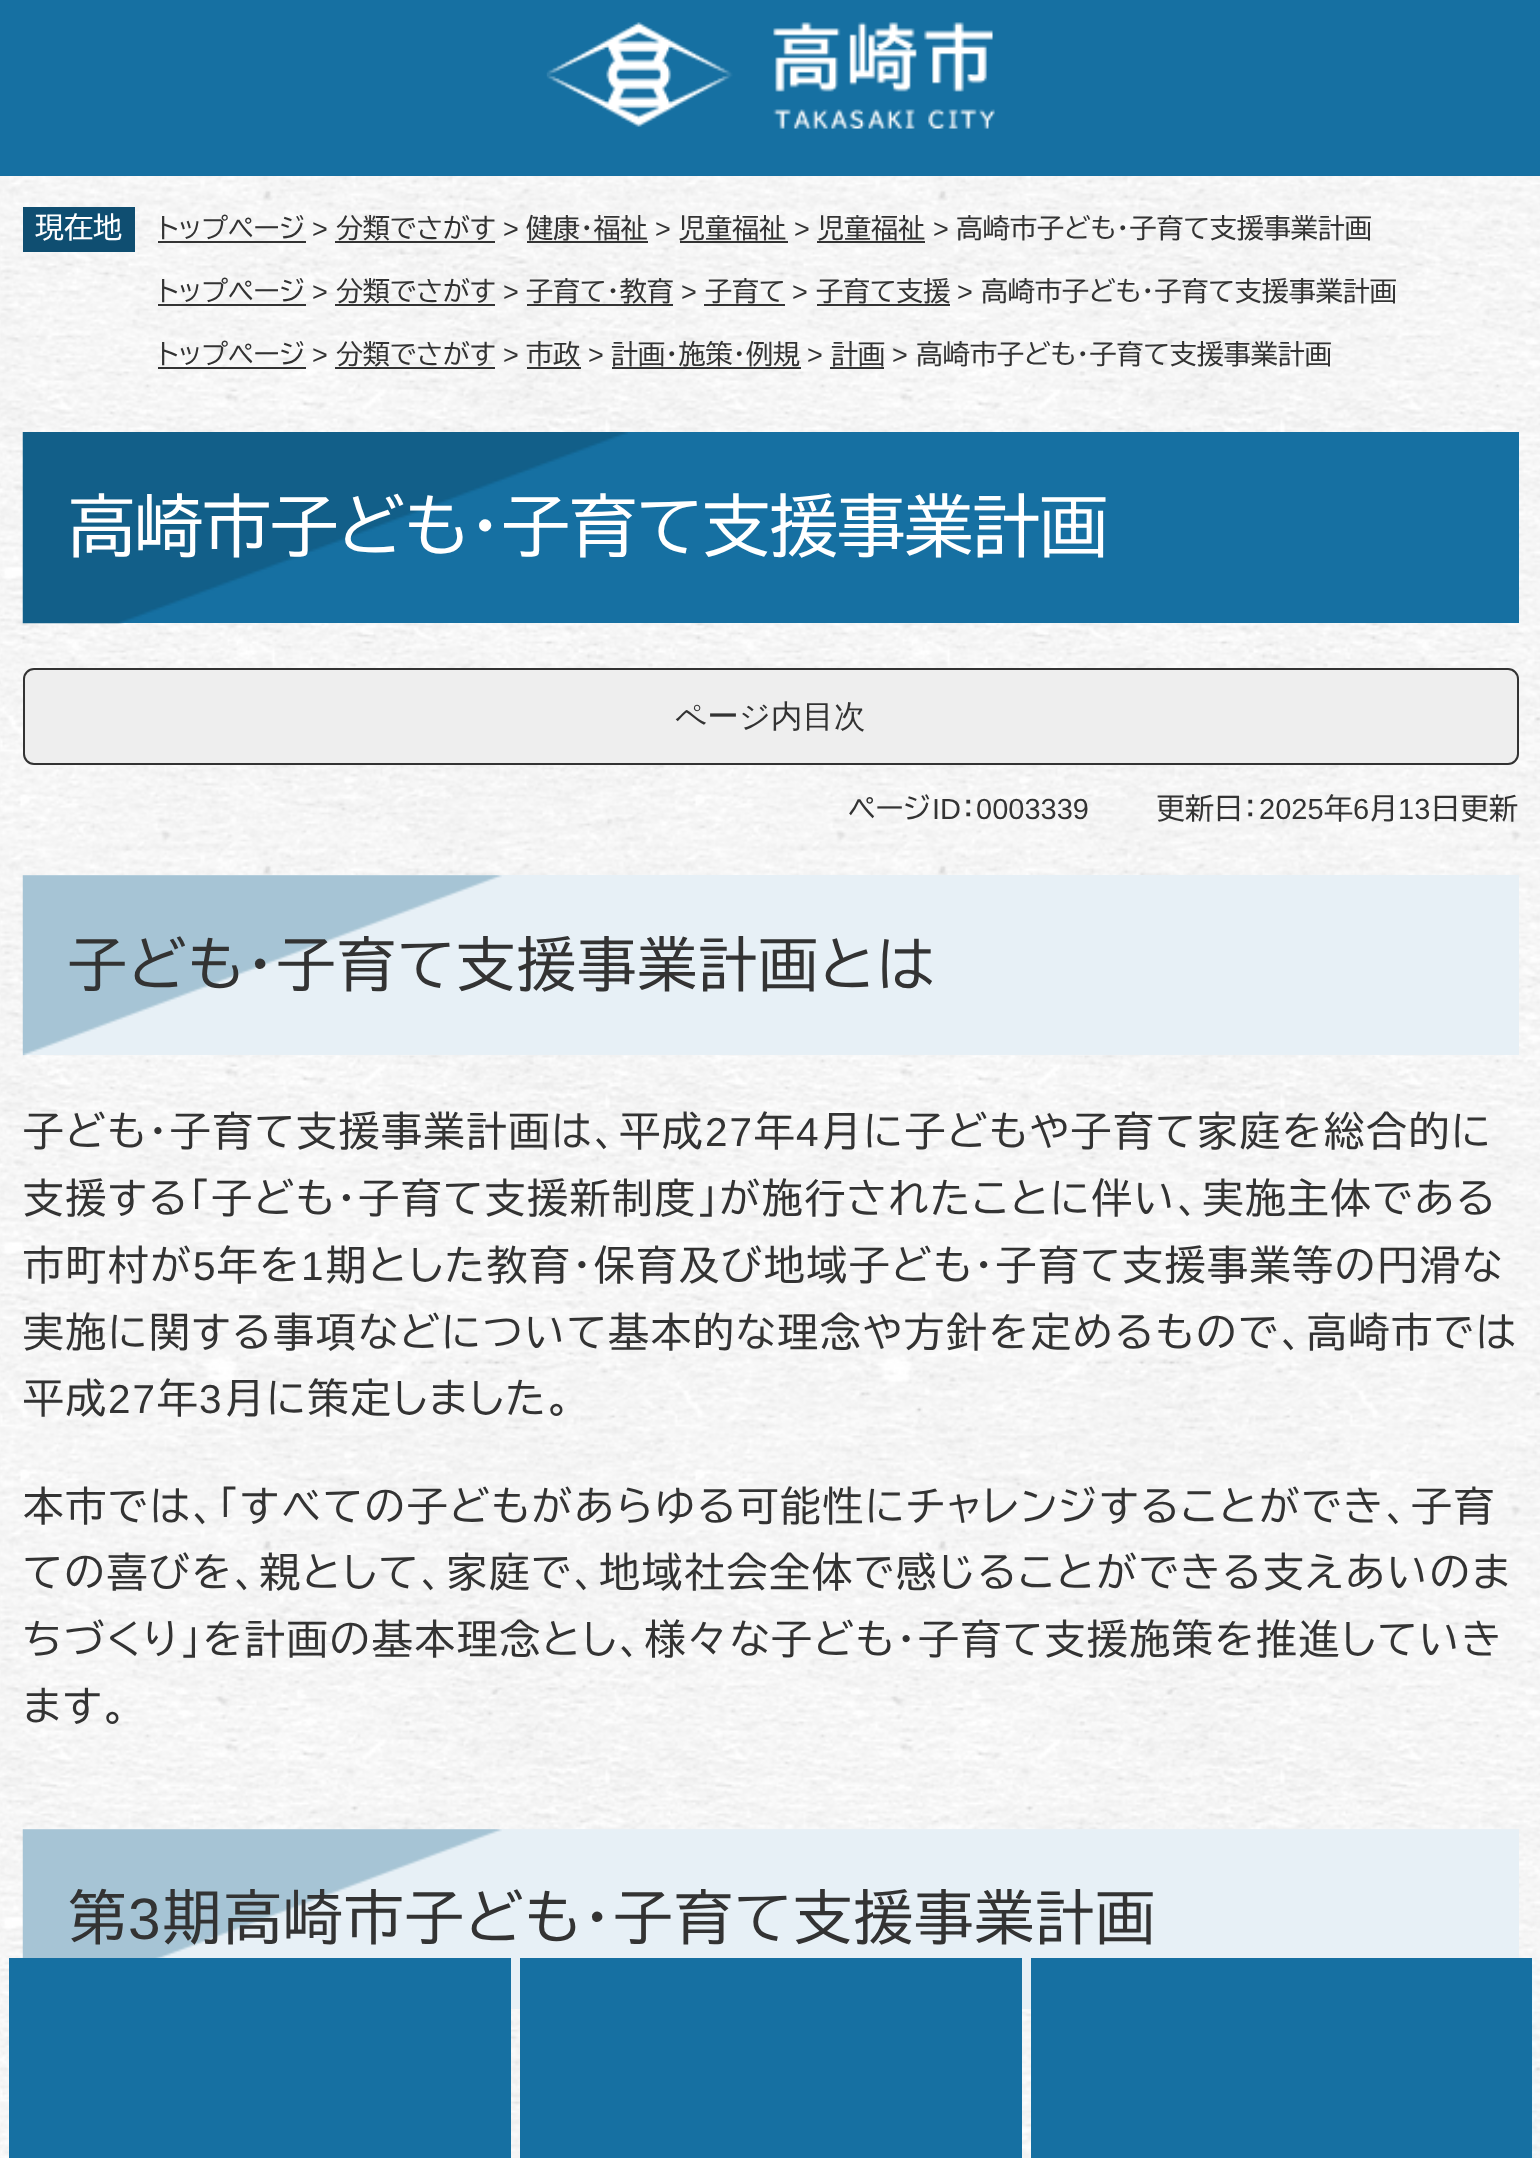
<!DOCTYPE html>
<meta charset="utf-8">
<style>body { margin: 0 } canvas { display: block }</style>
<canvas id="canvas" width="1540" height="2158"></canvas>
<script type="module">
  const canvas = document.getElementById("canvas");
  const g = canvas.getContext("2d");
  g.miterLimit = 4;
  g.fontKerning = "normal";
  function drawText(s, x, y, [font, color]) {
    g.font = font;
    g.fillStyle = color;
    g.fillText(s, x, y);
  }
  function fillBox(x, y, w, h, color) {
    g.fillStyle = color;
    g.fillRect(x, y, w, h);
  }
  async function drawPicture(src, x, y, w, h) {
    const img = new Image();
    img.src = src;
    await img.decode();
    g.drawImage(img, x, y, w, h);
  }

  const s1 = ["29px BIZ UDPGothic", "#FFFFFF"];
  const s2 = ["27px BIZ UDPGothic", "#333333"];
  const s3 = ["27px Liberation Sans", "#333333"];
  const s4 = ["67.5px BIZ UDPGothic", "#FFFFFF"];
  const s5 = ["500 31.5px WenQuanYi Zen Hei", "#333333"];
  const s6 = ["29px BIZ UDPGothic", "#333333"];
  const s7 = ["29px Liberation Sans", "#333333"];
  const s8 = ["58.5px BIZ UDPGothic", "#333333"];
  const s9 = ["40.5px BIZ UDPGothic", "#333333"];
  const s10 = ["40.5px Liberation Sans", "#333333"];
  const s11 = ["58.5px Liberation Sans", "#333333"];

  fillBox(0, 0, 1540, 2158, "#FFFFFF");
  await drawPicture("pic1.png", 0, 176, 1540, 1982);
  fillBox(0, 0, 1540, 176, "#1670A2");
  await drawPicture("pic2.png", 546, 22, 449, 107);
  fillBox(23, 1829, 1496, 180, "#E7F0F6");
  fillBox(9, 1958, 502, 200, "#1670A2");
  fillBox(520, 1958, 502, 200, "#1670A2");
  fillBox(1031, 1958, 501, 200, "#1670A2");
  fillBox(23, 207, 112, 45, "#0F4E71");
  drawText("現在地", 35, 238, s1);
  drawText("トップページ", 158, 238, s2);
  fillBox(158, 241, 148, 2, "#333333");
  drawText(">", 312, 238, s3);
  drawText("分類でさがす", 336, 238, s2);
  fillBox(335, 241, 160, 2, "#333333");
  drawText(">", 503, 238, s3);
  drawText("健康・福祉", 526, 238, s2);
  fillBox(527, 241, 121, 2, "#333333");
  drawText(">", 655, 238, s3);
  drawText("児童福祉", 678, 238, s2);
  fillBox(680, 241, 108, 2, "#333333");
  drawText(">", 794, 238, s3);
  drawText("児童福祉", 817, 238, s2);
  fillBox(817, 241, 108, 2, "#333333");
  drawText(">", 933, 238, s3);
  drawText("高崎市子ども・子育て支援事業計画", 956, 238, s2);
  drawText("トップページ", 158, 301, s2);
  fillBox(158, 304, 148, 2, "#333333");
  drawText(">", 312, 301, s3);
  drawText("分類でさがす", 336, 301, s2);
  fillBox(335, 304, 160, 2, "#333333");
  drawText(">", 503, 301, s3);
  drawText("子育て・教育", 526, 301, s2);
  fillBox(527, 304, 146, 2, "#333333");
  drawText(">", 681, 301, s3);
  drawText("子育て", 705, 301, s2);
  fillBox(704, 304, 81, 2, "#333333");
  drawText(">", 792, 301, s3);
  drawText("子育て支援", 816, 301, s2);
  fillBox(817, 304, 133, 2, "#333333");
  drawText(">", 957, 301, s3);
  drawText("高崎市子ども・子育て支援事業計画", 981, 301, s2);
  drawText("トップページ", 158, 364, s2);
  fillBox(158, 367, 148, 2, "#333333");
  drawText(">", 312, 364, s3);
  drawText("分類でさがす", 336, 364, s2);
  fillBox(335, 367, 160, 2, "#333333");
  drawText(">", 503, 364, s3);
  drawText("市政", 526, 364, s2);
  fillBox(527, 367, 54, 2, "#333333");
  drawText(">", 588, 364, s3);
  drawText("計画・施策・例規", 611, 364, s2);
  fillBox(612, 367, 189, 2, "#333333");
  drawText(">", 807, 364, s3);
  drawText("計画", 831, 364, s2);
  fillBox(830, 367, 54, 2, "#333333");
  drawText(">", 892, 364, s3);
  drawText("高崎市子ども・子育て支援事業計画", 916, 364, s2);
  fillBox(116, 432, 1403, 191, "#1670A2");
  await drawPicture("pic3.png", 22, 432, 606, 192);
  drawText("高崎市子ども・子育て支援事業計画", 68, 551, s4);
  g.fillStyle = "#EEEEEE";
  g.beginPath();
  g.roundRect(24, 669, 1494, 95, 10);
  g.fill();
  g.strokeStyle = "#333333";
  g.lineWidth = 2;
  g.stroke();
  drawText("ページ内目次", 675, 727, s5);
  drawText("ページ", 848, 819, s6);
  drawText("ID", 932, 819, s7);
  drawText("：", 961, 819, s6);
  drawText("0003339", 976, 819, s7);
  drawText("更新日：", 1156, 819, s6);
  drawText("2025", 1259, 819, s7);
  drawText("年", 1324, 819, s6);
  drawText("6", 1353, 819, s7);
  drawText("月", 1369, 819, s6);
  drawText("13", 1398, 819, s7);
  drawText("日更新", 1431, 819, s6);
  fillBox(23, 875, 1496, 180, "#E7F0F6");
  await drawPicture("pic4.png", 22, 875, 480, 181);
  g.letterSpacing = "2px";
  drawText("子ども・子育て支援事業計画とは", 68, 986, s8);
  drawText("子ども・子育て支援事業計画は、平成", 23, 1146, s9);
  drawText("27", 705, 1146, s10);
  drawText("年", 754, 1146, s9);
  drawText("4", 796, 1146, s10);
  drawText("月に子どもや子育て家庭を総合的に", 821, 1146, s9);
  drawText("支援する「子ども・子育て支援新制度」が施行されたことに伴い、実施主体である", 23, 1213, s9);
  drawText("市町村が", 23, 1280, s9);
  drawText("5", 193, 1280, s10);
  drawText("年を", 217, 1280, s9);
  drawText("1", 301, 1280, s10);
  drawText("期とした教育・保育及び地域子ども・子育て支援事業等の円滑な", 326, 1280, s9);
  drawText("実施に関する事項などについて基本的な理念や方針を定めるもので、高崎市では", 23, 1347, s9);
  drawText("平成", 23, 1413, s9);
  drawText("27", 108, 1413, s10);
  drawText("年", 157, 1413, s9);
  drawText("3", 199, 1413, s10);
  drawText("月に策定しました。", 224, 1413, s9);
  drawText("本市では、「すべての子どもがあらゆる可能性にチャレンジすることができ、子育", 23, 1521, s9);
  drawText("ての喜びを、親として、家庭で、地域社会全体で感じることができる支えあいのま", 23, 1587, s9);
  drawText("ちづくり」を計画の基本理念とし、様々な子ども・子育て支援施策を推進していき", 23, 1654, s9);
  drawText("ます。", 23, 1721, s9);
  await drawPicture("pic5.png", 22, 1829, 480, 129);
  drawText("第", 68, 1939, s8);
  drawText("3", 128, 1939, s11);
  drawText("期高崎市子ども・子育て支援事業計画", 163, 1939, s8);
</script>
